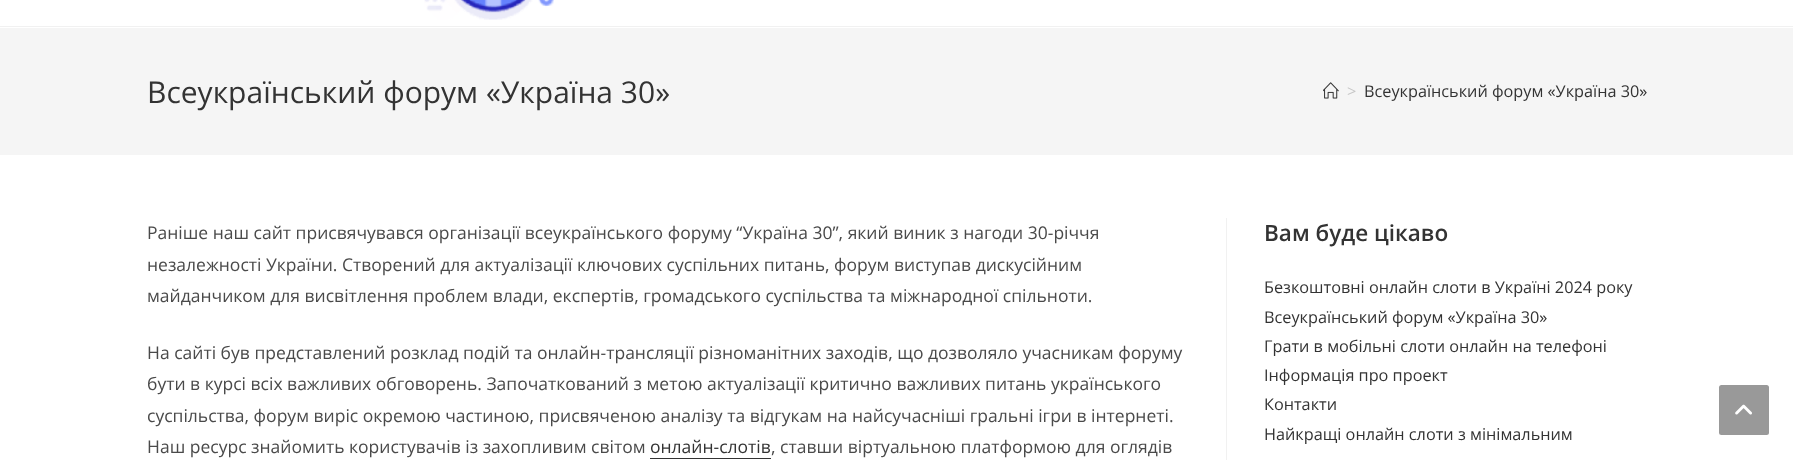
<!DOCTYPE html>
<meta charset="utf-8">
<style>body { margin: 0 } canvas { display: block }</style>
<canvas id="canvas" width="1793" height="460"></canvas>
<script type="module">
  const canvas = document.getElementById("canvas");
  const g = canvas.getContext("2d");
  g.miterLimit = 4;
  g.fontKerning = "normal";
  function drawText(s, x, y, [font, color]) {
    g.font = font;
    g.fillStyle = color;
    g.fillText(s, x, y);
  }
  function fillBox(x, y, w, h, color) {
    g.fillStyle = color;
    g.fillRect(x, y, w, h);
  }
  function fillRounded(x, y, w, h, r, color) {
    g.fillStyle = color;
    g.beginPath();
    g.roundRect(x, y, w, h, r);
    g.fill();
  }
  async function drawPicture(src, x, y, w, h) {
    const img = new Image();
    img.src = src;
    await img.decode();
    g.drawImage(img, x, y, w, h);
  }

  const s1 = ["30px Open Sans", "#333333"];
  const s2 = ["16.25px Open Sans", "#C6C6C6"];
  const s3 = ["16.25px Open Sans", "#333333"];
  const s4 = ["17.5px Open Sans", "#4A4A4A"];
  const s5 = ["17.5px Open Sans", "#333333"];
  const s6 = ["600 22.5px Open Sans", "#333333"];

  fillBox(0, 0, 1793, 460, "#FFFFFF");
  fillBox(0, 26, 1793, 1, "#F1F1F1");
  await drawPicture("pic1.png", 424, 0, 130, 20);
  fillBox(0, 28, 1793, 127, "#F5F5F5");
  drawText("Всеукраїнський форум «Україна 30»", 147, 103, s1);
  await drawPicture("pic2.png", 1323, 82, 16, 17);
  drawText(">", 1347, 97, s2);
  drawText("Всеукраїнський форум «Україна 30»", 1364, 97, s3);
  fillBox(1226, 218, 1, 242, "#F1F1F1");
  drawText("Раніше наш сайт присвячувався організації всеукраїнського форуму “Україна 30”, який виник з нагоди 30-річчя", 147, 239, s4);
  drawText("незалежності України. Створений для актуалізації ключових суспільних питань, форум виступав дискусійним", 147, 271, s4);
  drawText("майданчиком для висвітлення проблем влади, експертів, громадського суспільства та міжнародної спільноти.", 147, 302, s4);
  drawText("На сайті був представлений розклад подій та онлайн-трансляції різноманітних заходів, що дозволяло учасникам форуму", 147, 359, s4);
  drawText("бути в курсі всіх важливих обговорень. Започаткований з метою актуалізації критично важливих питань українського", 147, 390, s4);
  drawText("суспільства, форум виріс окремою частиною, присвяченою аналізу та відгукам на найсучасніші гральні ігри в інтернеті.", 147, 422, s4);
  drawText("Наш ресурс знайомить користувачів із захопливим світом", 147, 453, s4);
  drawText("онлайн-слотів", 650, 453, s5);
  fillBox(650, 458, 121, 1, "#333333");
  drawText(", ставши віртуальною платформою для оглядів", 771, 453, s4);
  drawText("Вам буде цікаво", 1264, 241, s6);
  drawText("Безкоштовні онлайн слоти в Україні 2024 року", 1264, 293, s3);
  drawText("Всеукраїнський форум «Україна 30»", 1264, 323, s3);
  drawText("Грати в мобільні слоти онлайн на телефоні", 1264, 352, s3);
  drawText("Інформація про проект", 1264, 381, s3);
  drawText("Контакти", 1264, 410, s3);
  drawText("Найкращі онлайн слоти з мінімальним", 1264, 440, s3);
  fillRounded(1719, 385, 50, 50, 2.5, "#999999");
  await drawPicture("pic3.png", 1735, 404, 17, 11);
</script>
